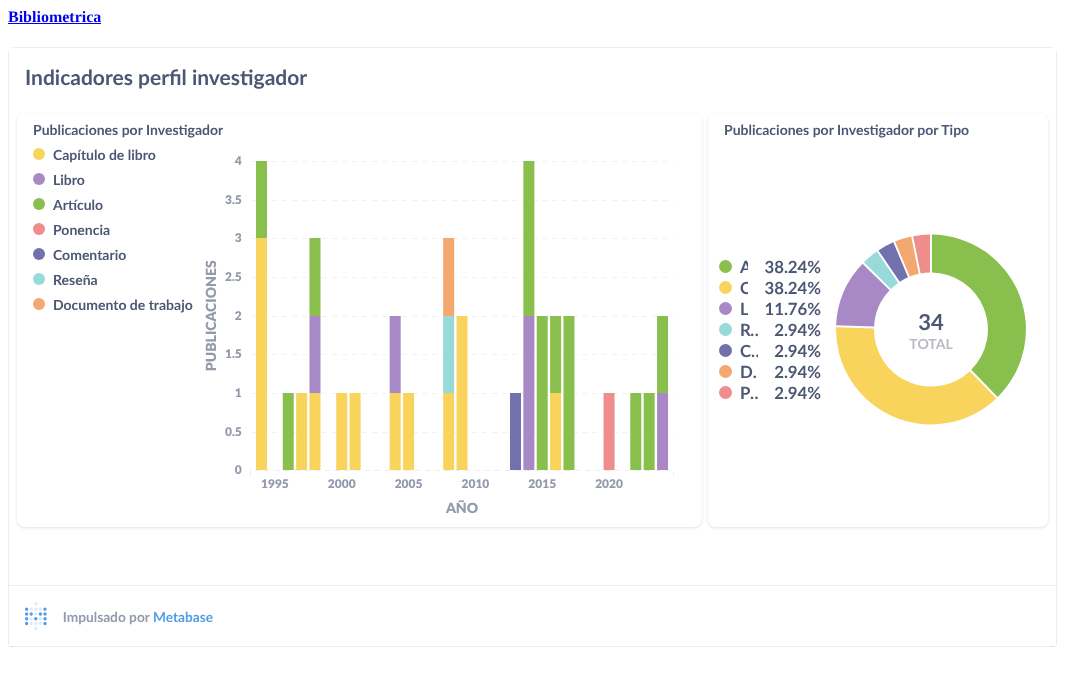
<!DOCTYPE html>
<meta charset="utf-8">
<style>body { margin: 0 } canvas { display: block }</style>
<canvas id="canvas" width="1065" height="700"></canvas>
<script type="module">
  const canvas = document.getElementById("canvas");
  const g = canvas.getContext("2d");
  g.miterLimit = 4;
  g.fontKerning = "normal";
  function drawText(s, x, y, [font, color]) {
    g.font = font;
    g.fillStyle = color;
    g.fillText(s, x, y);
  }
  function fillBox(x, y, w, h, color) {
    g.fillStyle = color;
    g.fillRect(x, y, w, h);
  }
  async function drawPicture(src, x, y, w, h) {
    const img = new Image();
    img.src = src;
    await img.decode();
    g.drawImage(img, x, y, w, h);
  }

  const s1 = ["bold 16px Liberation Serif", "#0000EE"];

  fillBox(0, 0, 1065, 700, "#FFFFFF");
  drawText("Bibliometrica", 8, 22, s1);
  fillBox(8, 23, 93, 1, "#0000EE");
  await drawPicture("pic1.png", 8, 47, 1049, 600);
</script>
